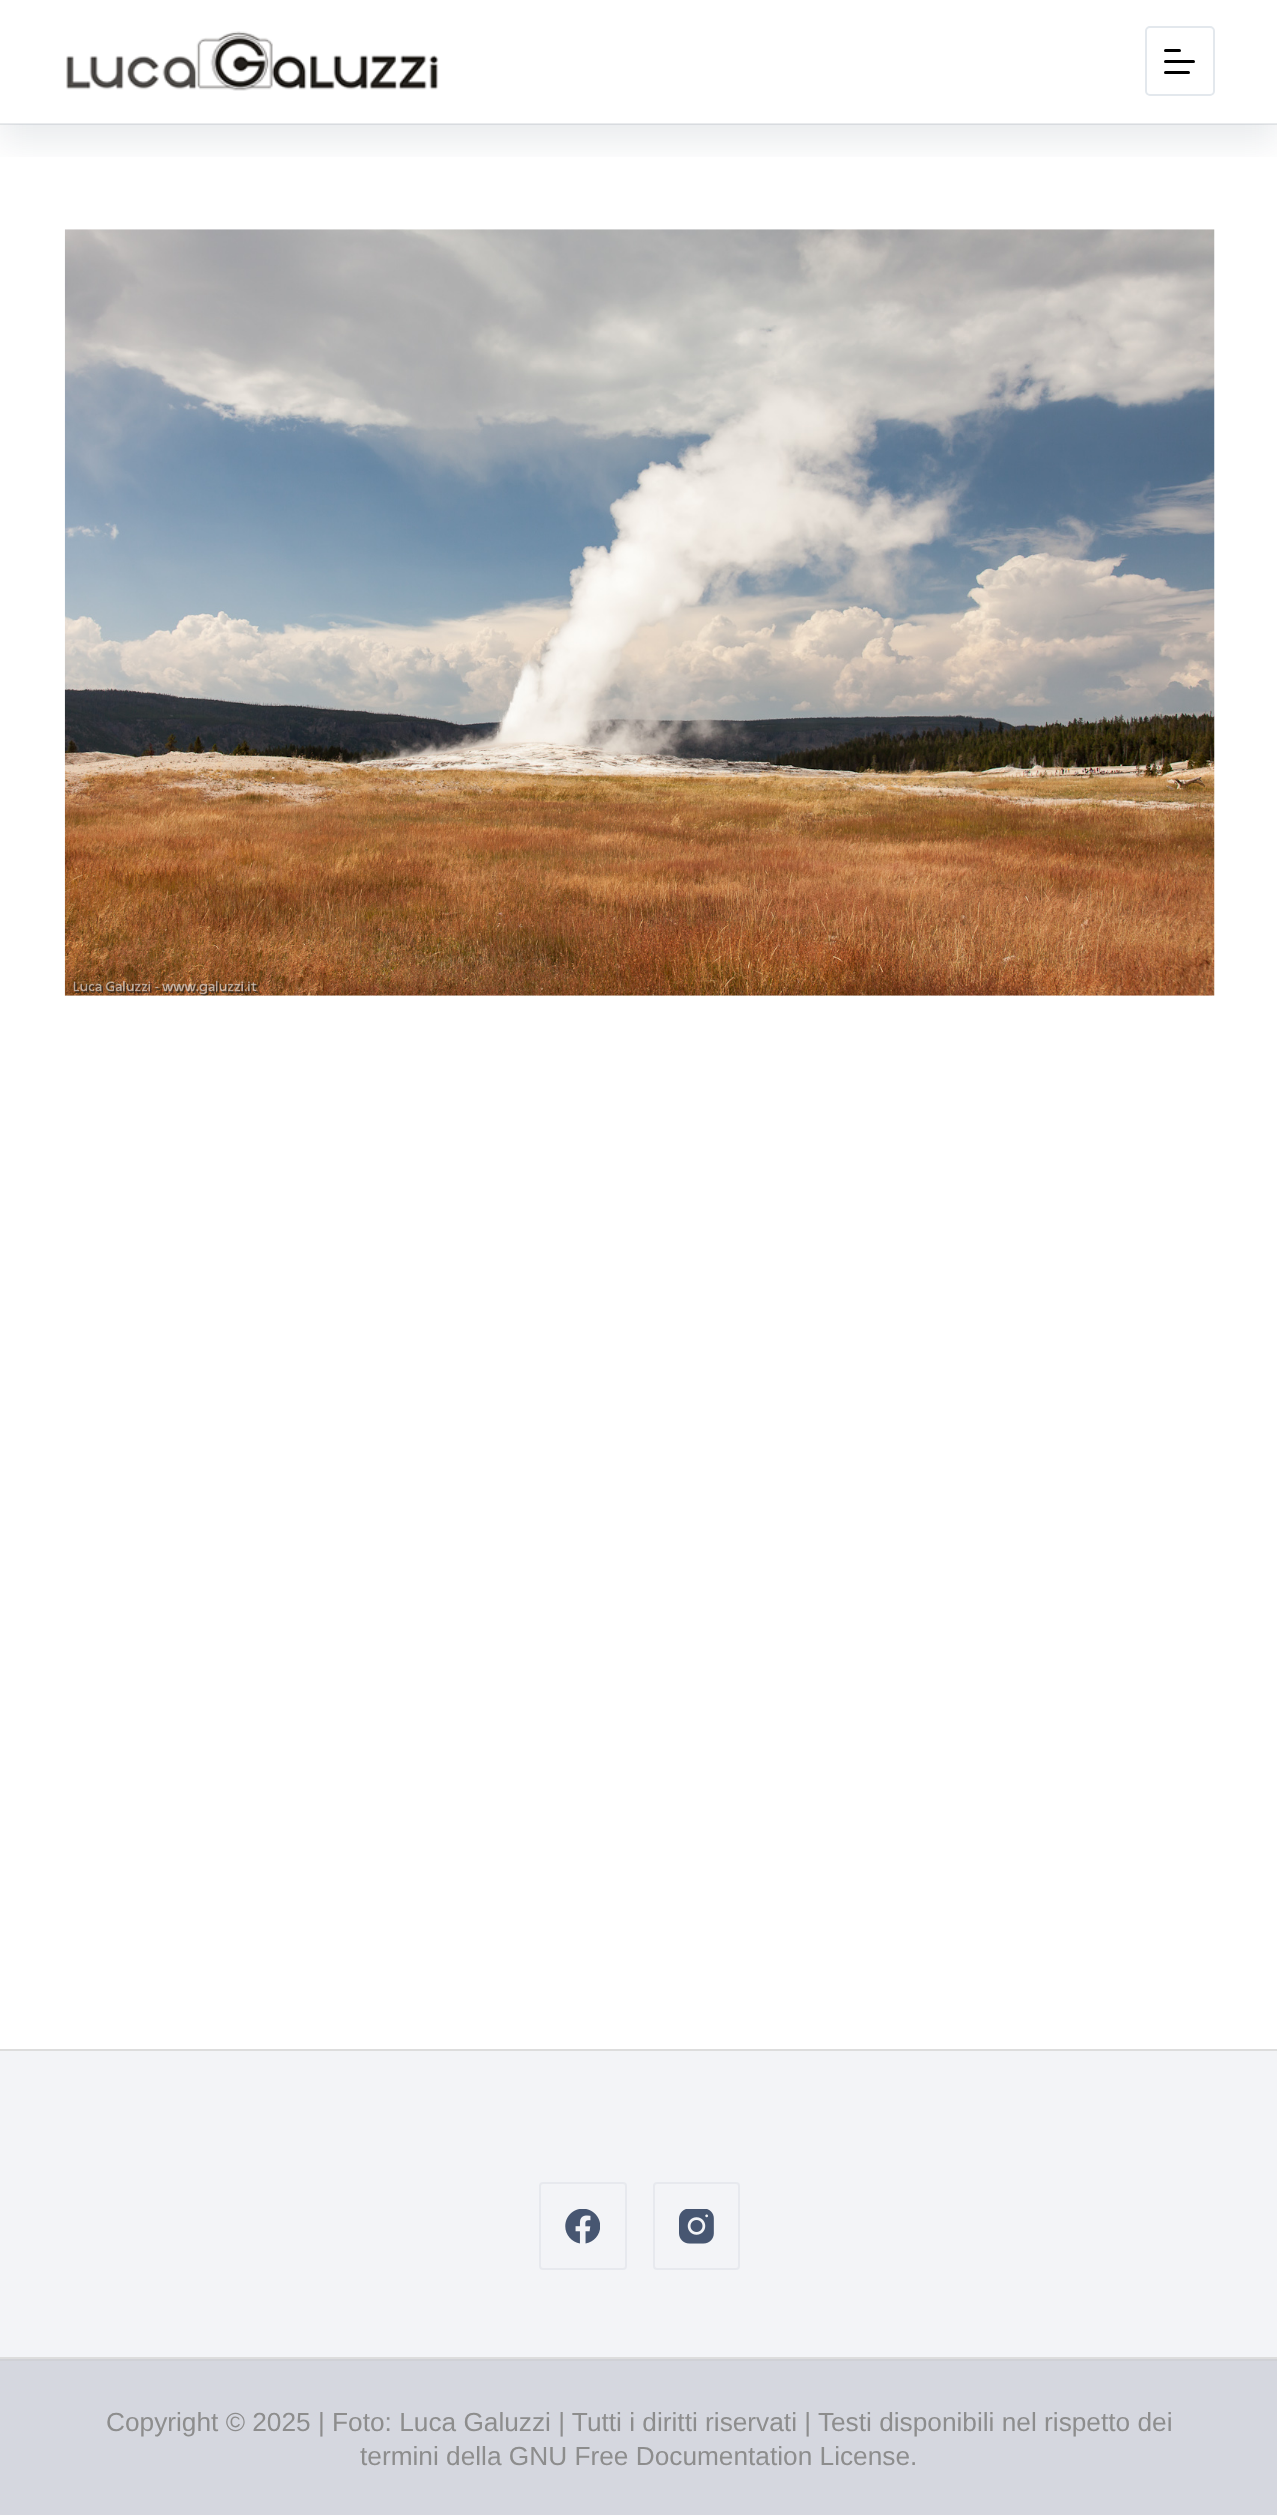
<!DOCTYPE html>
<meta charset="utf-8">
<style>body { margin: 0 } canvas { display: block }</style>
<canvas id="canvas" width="1277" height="2515"></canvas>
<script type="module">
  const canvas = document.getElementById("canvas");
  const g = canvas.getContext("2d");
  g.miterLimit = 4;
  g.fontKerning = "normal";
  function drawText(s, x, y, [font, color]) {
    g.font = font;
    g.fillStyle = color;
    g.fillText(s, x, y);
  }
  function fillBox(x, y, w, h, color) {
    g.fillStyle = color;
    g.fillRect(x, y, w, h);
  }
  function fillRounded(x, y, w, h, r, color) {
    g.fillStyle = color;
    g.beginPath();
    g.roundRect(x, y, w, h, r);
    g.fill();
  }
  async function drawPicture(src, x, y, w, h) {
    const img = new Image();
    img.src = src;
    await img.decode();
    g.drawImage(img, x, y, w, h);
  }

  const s1 = ["26.25px Liberation Sans", "#8D8D8D"];

  fillBox(0, 0, 1277, 2515, "#FFFFFF");
  g.save();
  g.beginPath();
  g.rect(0, 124, 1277, 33);
  g.clip();
  g.fillStyle = "rgba(43, 61, 79, 0.1)";
  g.filter = "blur(17.5px)";
  g.beginPath();
  g.rect(0, 18, 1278, 124);
  g.fill();
  g.filter = "none";
  g.restore();
  fillBox(0, 123, 1277, 2, "rgba(43, 61, 79, 0.1)");
  await drawPicture("pic1.png", 66, 31, 373, 60);
  g.beginPath();
  g.roundRect(1146, 27, 68, 68, 4);
  g.strokeStyle = "#E3E8ED";
  g.lineWidth = 2;
  g.stroke();
  fillRounded(1164, 49, 17, 3, 1.5, "#000000");
  fillRounded(1164, 60, 31, 3, 1.5, "#000000");
  fillRounded(1164, 71, 26, 3, 1.5, "#000000");
  await drawPicture("pic2.png", 64, 229, 1151, 767);
  fillBox(0, 2051, 1277, 306, "#F3F4F7");
  fillBox(0, 2049, 1277, 2, "#DDDDDD");
  fillBox(0, 2357, 1277, 2, "#DDDDDD");
  g.beginPath();
  g.roundRect(540, 2183, 86, 86, 3);
  g.strokeStyle = "#E7E9EE";
  g.stroke();
  await drawPicture("pic3.png", 565, 2209, 35, 35);
  g.beginPath();
  g.roundRect(654, 2183, 85, 86, 3);
  g.stroke();
  await drawPicture("pic4.png", 679, 2209, 35, 35);
  fillBox(0, 2361, 1277, 154, "#D5D7DF");
  fillBox(0, 2359, 1277, 2, "#D0D1D6");
  drawText("Copyright © 2025 | Foto: Luca Galuzzi | Tutti i diritti riservati | Testi disponibili nel rispetto dei", 106, 2431, s1);
  drawText("termini della GNU Free Documentation License.", 360, 2465, s1);
</script>
